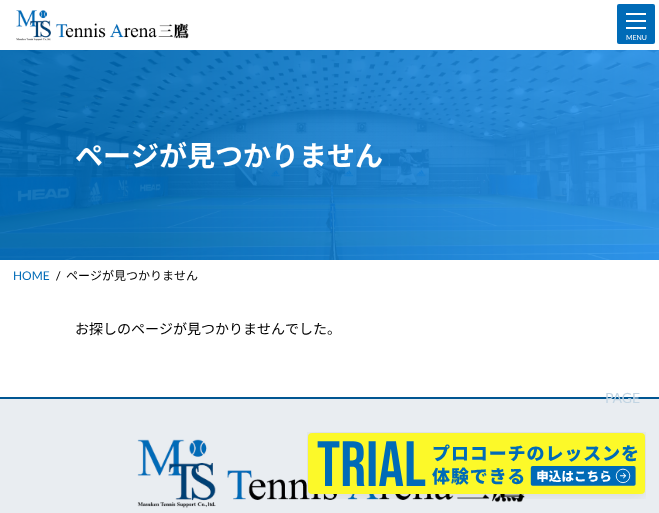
<!DOCTYPE html>
<meta charset="utf-8">
<style>body { margin: 0 } canvas { display: block }</style>
<canvas id="canvas" width="659" height="513"></canvas>
<script type="module">
  const canvas = document.getElementById("canvas");
  const g = canvas.getContext("2d");
  g.miterLimit = 4;
  g.fontKerning = "normal";
  function drawText(s, x, y, [font, color]) {
    g.font = font;
    g.fillStyle = color;
    g.fillText(s, x, y);
  }
  function fillBox(x, y, w, h, color) {
    g.fillStyle = color;
    g.fillRect(x, y, w, h);
  }
  function fillRounded(x, y, w, h, r, color) {
    g.fillStyle = color;
    g.beginPath();
    g.roundRect(x, y, w, h, r);
    g.fill();
  }
  async function drawPicture(src, x, y, w, h) {
    const img = new Image();
    img.src = src;
    await img.decode();
    g.drawImage(img, x, y, w, h);
  }

  const s1 = ["7px Lato", "#FFFFFF"];
  const s2 = ["bold 28px Noto Sans JP", "#FFFFFF"];
  const s3 = ["12px Lato", "#006BB7"];
  const s4 = ["12px Lato", "#000000"];
  const s5 = ["12px Noto Sans JP", "#000000"];
  const s6 = ["14px Noto Sans JP", "#000000"];
  const s7 = ["14px Lato", "#C2D5E3"];

  fillBox(0, 0, 659, 513, "#FFFFFF");
  await drawPicture("pic1.png", 16, 10, 173, 31);
  fillRounded(617, 4, 38, 40, 2, "#006BB7");
  fillBox(626, 13, 20, 2, "#FFFFFF");
  fillBox(626, 20, 20, 2, "#FFFFFF");
  fillBox(626, 27, 20, 2, "#FFFFFF");
  drawText("MENU", 626, 40, s1);
  await drawPicture("pic2.png", 0, 50, 659, 210);
  drawText("ページが見つかりません", 75, 166, s2);
  drawText("HOME", 13, 280, s3);
  drawText("/", 56, 280, s4);
  drawText("ページが見つかりません", 66, 280, s5);
  drawText("お探しのページが見つかりませんでした。", 75, 334, s6);
  fillBox(0, 397, 659, 2, "#005692");
  fillBox(0, 399, 659, 114, "#E9EDF1");
  drawText("PAGE", 605, 403, s7);
  await drawPicture("pic3.png", 137, 439, 388, 69);
  await drawPicture("pic4.png", 307, 432, 339, 67);
</script>
